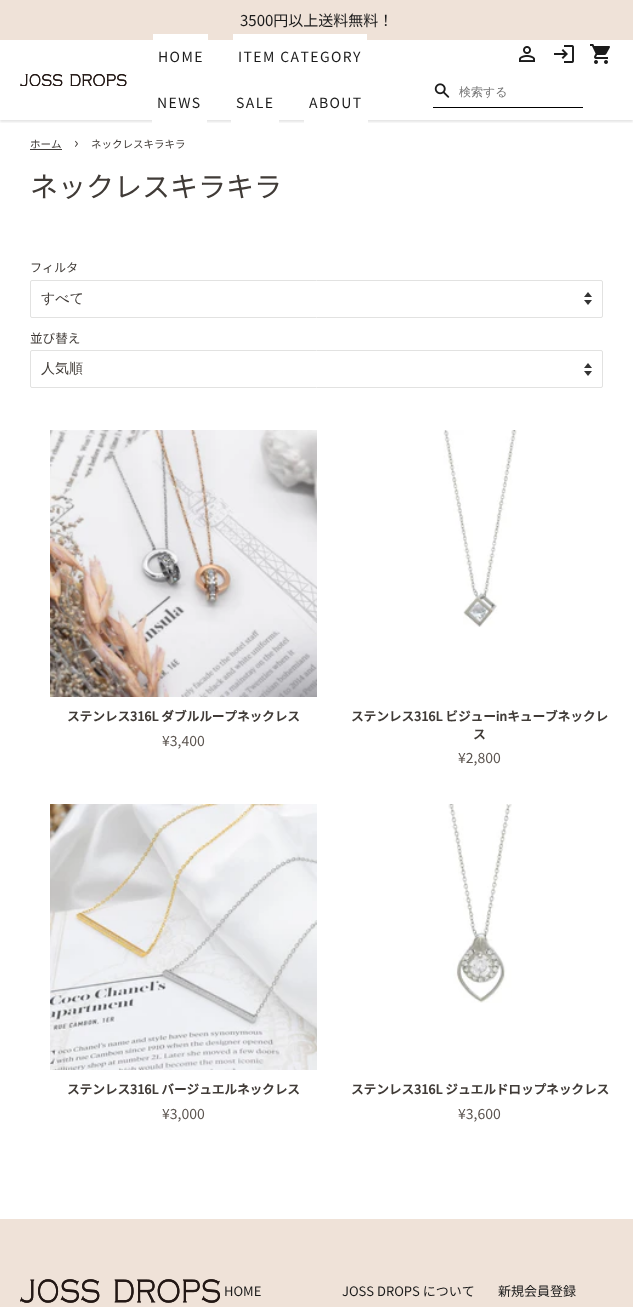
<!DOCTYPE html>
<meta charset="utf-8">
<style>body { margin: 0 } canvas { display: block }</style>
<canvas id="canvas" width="633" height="1307"></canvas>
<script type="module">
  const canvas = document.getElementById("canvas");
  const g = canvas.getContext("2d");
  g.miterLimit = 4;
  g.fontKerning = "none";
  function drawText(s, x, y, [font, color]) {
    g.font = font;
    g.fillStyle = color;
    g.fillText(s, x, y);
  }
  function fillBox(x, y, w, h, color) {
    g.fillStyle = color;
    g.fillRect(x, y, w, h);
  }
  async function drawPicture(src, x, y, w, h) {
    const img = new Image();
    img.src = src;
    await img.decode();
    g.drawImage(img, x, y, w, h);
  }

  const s1 = ["15px Noto Sans JP", "#1B1B1B"];
  const s2 = ["14px Noto Sans JP", "#1B1B1B"];
  const s3 = ["500 12px WenQuanYi Zen Hei", "#757575"];
  const s4 = ["10.5px Noto Sans JP", "#403B37"];
  const s5 = ["15px Noto Sans JP", "#403B37"];
  const s6 = ["28px Noto Sans JP", "#403B37"];
  const s7 = ["12px Noto Sans JP", "#403B37"];
  const s8 = ["500 14px WenQuanYi Zen Hei", "#403B37"];
  const s9 = ["12.6px Noto Sans JP", "#403B37"];
  const s10 = ["bold 12.6px Noto Sans JP", "#403B37"];
  const s11 = ["14px Noto Sans JP", "#5B544F"];
  const s12 = ["13px Noto Sans JP", "#1B1B1B"];

  fillBox(0, 0, 633, 1307, "#FFFFFF");
  g.save();
  g.beginPath();
  g.rect(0, 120, 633, 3);
  g.clip();
  g.fillStyle = "rgba(0, 0, 0, 0.1)";
  g.filter = "blur(1px)";
  g.beginPath();
  g.rect(0, 2, 633, 120);
  g.fill();
  g.filter = "none";
  g.restore();
  fillBox(0, 0, 633, 40, "#EFE2D8");
  drawText("3500円以上送料無料！", 240, 26, s1);
  await drawPicture("pic1.png", 20, 74, 107, 12);
  fillBox(153, 34, 55, 6, "#FFFFFF");
  g.letterSpacing = "1.4px";
  drawText("HOME", 158, 62, s2);
  fillBox(233, 34, 134, 6, "#FFFFFF");
  drawText("ITEM CATEGORY", 238, 62, s2);
  fillBox(152, 120, 55, 3, "#FFFFFF");
  drawText("NEWS", 157, 108, s2);
  fillBox(231, 120, 48, 3, "#FFFFFF");
  drawText("SALE", 236, 108, s2);
  fillBox(304, 120, 64, 3, "#FFFFFF");
  drawText("ABOUT", 309, 108, s2);
  await drawPicture("pic2.png", 519, 46, 16, 16);
  await drawPicture("pic3.png", 554, 45, 20, 18);
  await drawPicture("pic4.png", 590, 44, 20, 20);
  fillBox(433, 107, 150, 1, "#000000");
  await drawPicture("pic5.png", 434, 83, 16, 15);
  g.letterSpacing = "0px";
  drawText("検索する", 459, 96, s3);
  drawText("ホーム", 30, 148, s4);
  fillBox(30, 149, 32, 1, "#403B37");
  drawText("›", 74, 148, s5);
  drawText("ネックレスキラキラ", 91, 148, s4);
  drawText("ネックレスキラキラ", 30, 197, s6);
  drawText("フィルタ", 30, 272, s7);
  await drawPicture("pic6.png", 584, 292, 8, 13);
  g.beginPath();
  g.roundRect(30.5, 280.5, 572, 37, 1.5);
  g.strokeStyle = "#E2E2E1";
  g.stroke();
  drawText("すべて", 41, 303, s8);
  drawText("並び替え", 30, 343, s9);
  await drawPicture("pic6.png", 584, 363, 8, 13);
  g.beginPath();
  g.roundRect(30.5, 350.5, 572, 37, 1.5);
  g.stroke();
  drawText("人気順", 41, 373, s8);
  await drawPicture("pic7.png", 50, 430, 267, 267);
  drawText("ステンレス316L ダブルループネックレス", 67, 721, s10);
  drawText("¥3,400", 162, 746, s11);
  await drawPicture("pic8.png", 443, 430, 74, 197);
  drawText("ステンレス316L ビジューinキューブネックレ", 351, 721, s10);
  drawText("ス", 473, 739, s10);
  drawText("¥2,800", 458, 763, s11);
  await drawPicture("pic9.png", 50, 804, 267, 266);
  drawText("ステンレス316L バージュエルネックレス", 67, 1094, s10);
  drawText("¥3,000", 162, 1119, s11);
  await drawPicture("pic10.png", 448, 804, 64, 199);
  drawText("ステンレス316L ジュエルドロップネックレス", 351, 1094, s10);
  drawText("¥3,600", 458, 1119, s11);
  fillBox(0, 1219, 633, 88, "#EFE2D8");
  await drawPicture("pic11.png", 20, 1279, 200, 24);
  drawText("HOME", 224, 1296, s12);
  drawText("JOSS DROPS について", 342, 1296, s12);
  drawText("新規会員登録", 498, 1296, s12);
</script>
